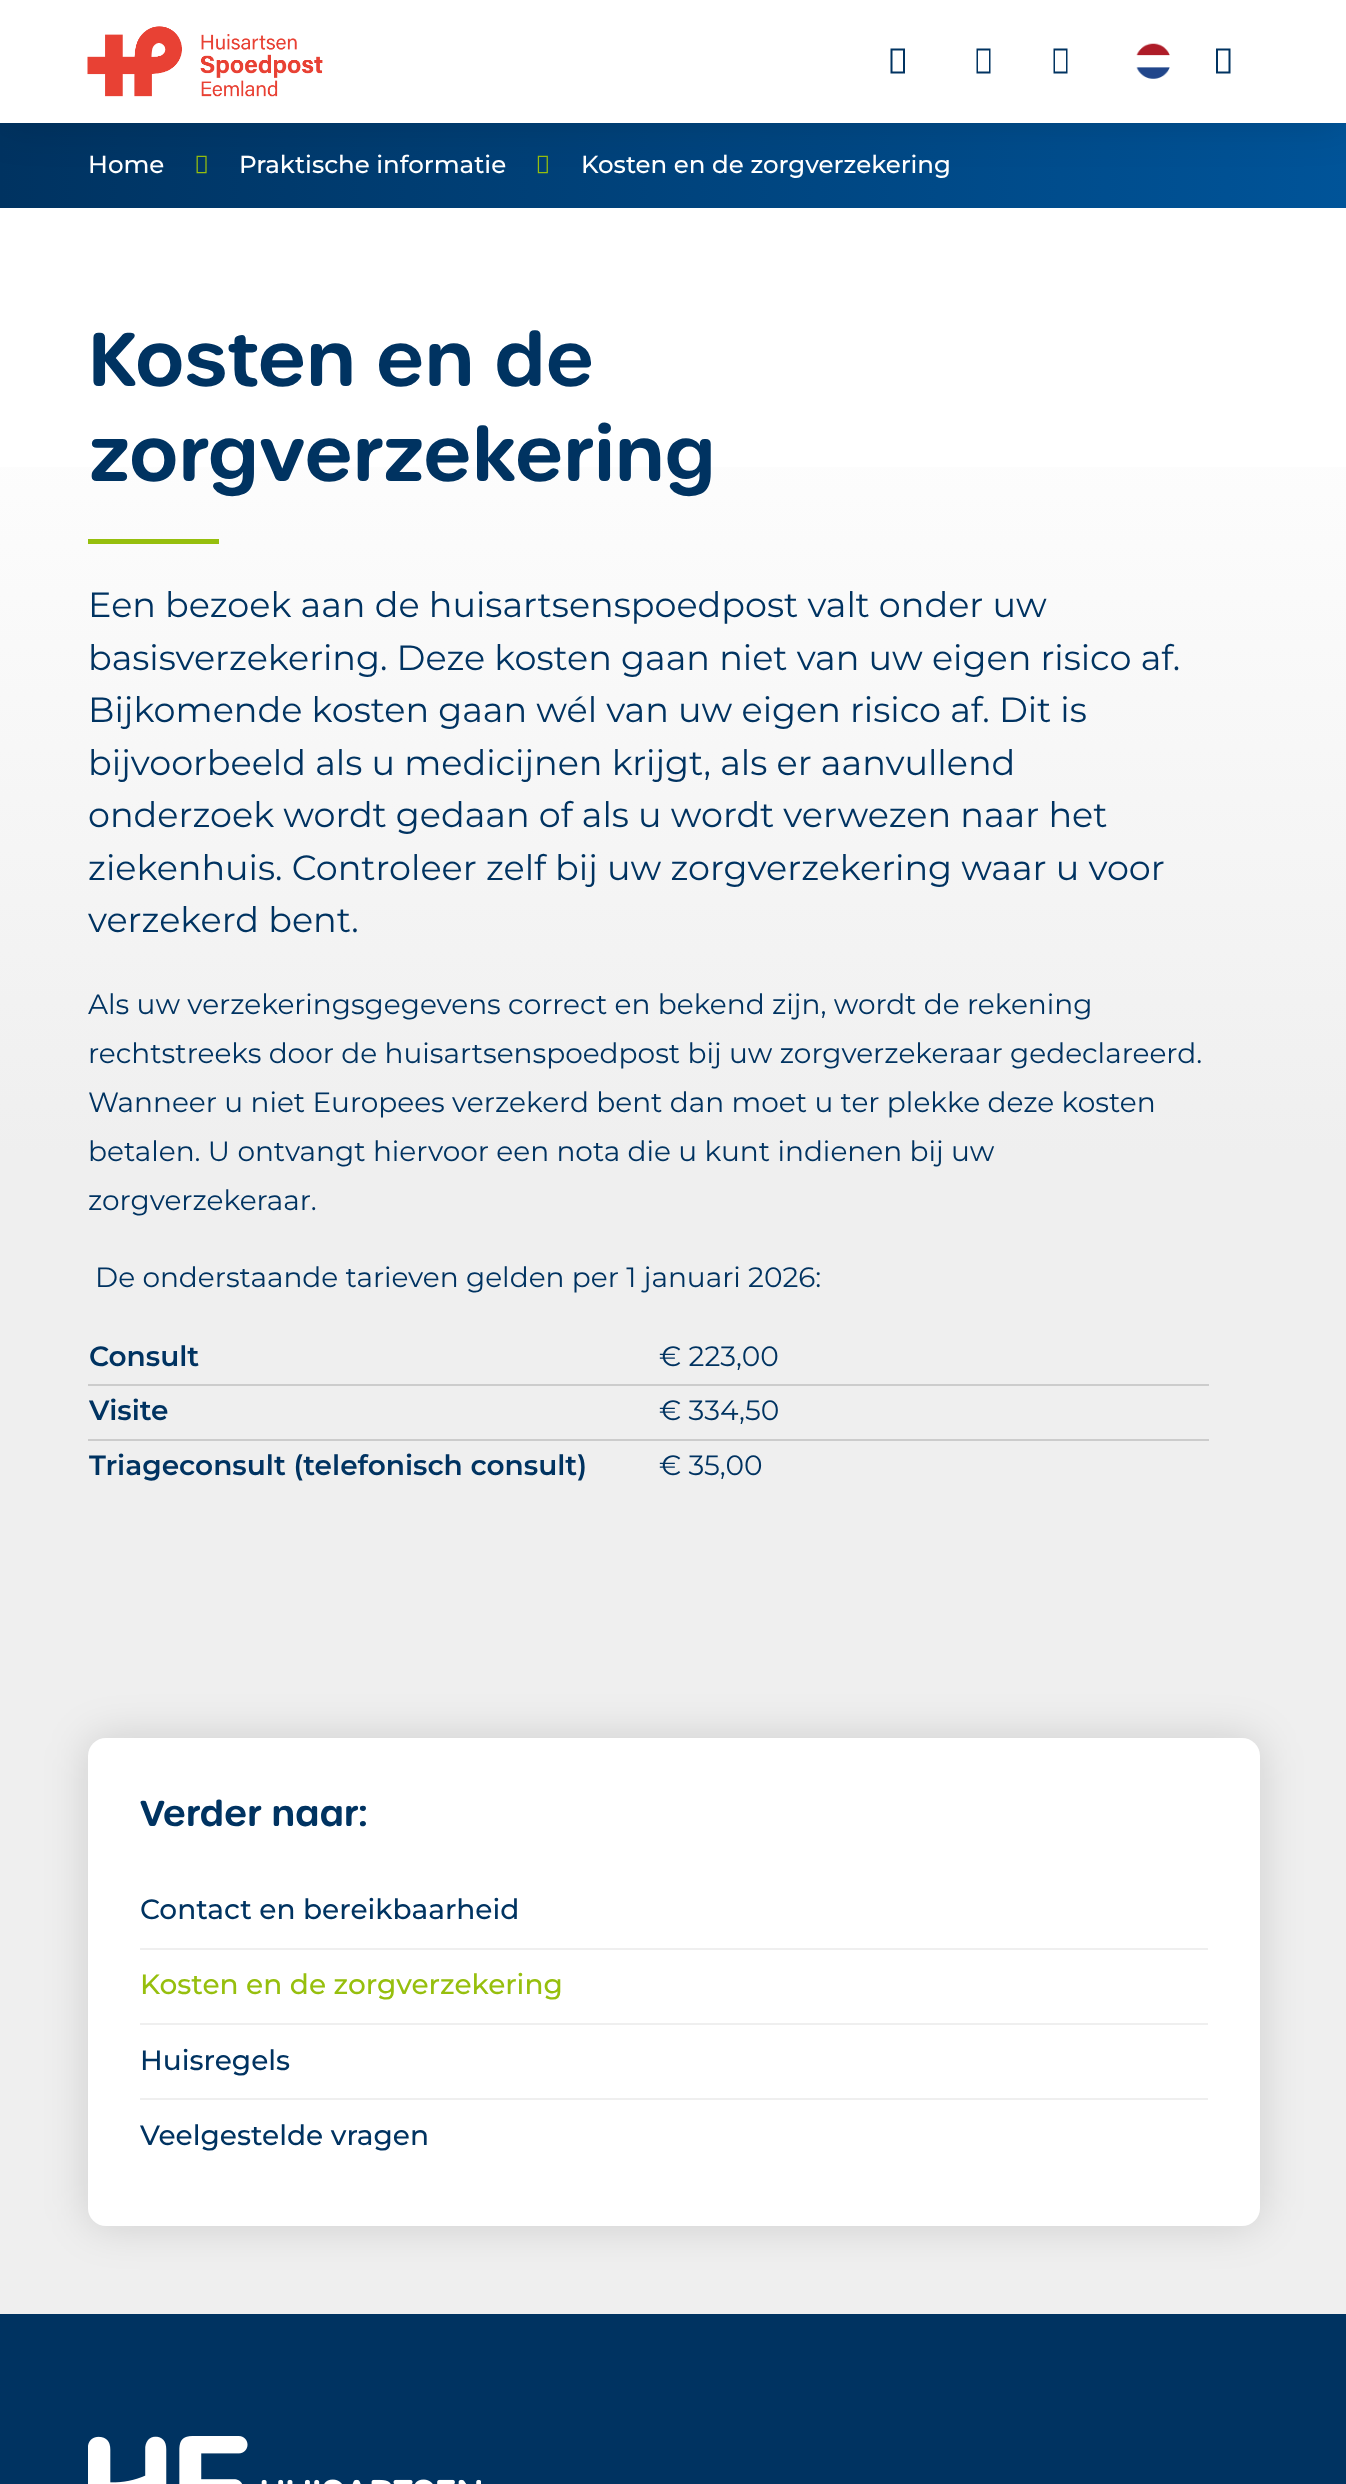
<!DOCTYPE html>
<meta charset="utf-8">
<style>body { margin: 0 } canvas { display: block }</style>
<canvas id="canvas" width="1346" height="2484"></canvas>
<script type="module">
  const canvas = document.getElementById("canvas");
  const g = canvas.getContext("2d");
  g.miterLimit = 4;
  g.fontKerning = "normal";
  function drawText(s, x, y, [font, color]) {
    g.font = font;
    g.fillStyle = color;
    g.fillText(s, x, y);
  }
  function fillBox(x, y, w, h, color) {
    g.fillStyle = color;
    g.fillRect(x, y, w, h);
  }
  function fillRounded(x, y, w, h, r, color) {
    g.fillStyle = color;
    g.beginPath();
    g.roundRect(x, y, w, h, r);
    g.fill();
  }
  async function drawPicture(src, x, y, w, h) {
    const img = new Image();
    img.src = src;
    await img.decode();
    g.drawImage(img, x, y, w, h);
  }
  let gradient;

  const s1 = ["500 24.5px Montserrat", "#FFFFFF"];
  const s2 = ["600 73.5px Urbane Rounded", "#003361"];
  const s3 = ["35px Montserrat", "#003361"];
  const s4 = ["28px Montserrat", "#003361"];
  const s5 = ["600 28px Montserrat", "#003361"];
  const s6 = ["600 35px Urbane Rounded", "#003361"];
  const s7 = ["500 28px Montserrat", "#003361"];
  const s8 = ["500 28px Montserrat", "#96BF0D"];

  fillBox(0, 0, 1346, 2484, "#FFFFFF");
  gradient = g.createLinearGradient(674, 0, 674, 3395);
  gradient.addColorStop(0, "#FFFFFF");
  gradient.addColorStop(0.1, "#FFFFFF");
  gradient.addColorStop(0.34, "#EFEFEF");
  gradient.addColorStop(1, "#EFEFEF");
  g.fillStyle = gradient;
  g.fillRect(0, 467, 1346, 1847);
  gradient = g.createLinearGradient(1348, 165, 0, 165);
  gradient.addColorStop(0, "#005499");
  gradient.addColorStop(1, "#003361");
  g.fillStyle = gradient;
  g.fillRect(0, 123, 1346, 85);
  await drawPicture("pic3.png", 196, 155, 11, 19);
  await drawPicture("pic4.png", 537, 155, 11, 19);
  g.fillStyle = "rgba(0, 0, 0, 0.14)";
  g.filter = "blur(22px)";
  g.beginPath();
  g.rect(0, 0, 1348, 123);
  g.fill();
  g.filter = "none";
  fillBox(0, 0, 1346, 123, "#FFFFFF");
  await drawPicture("pic1.png", 87, 26, 236, 71);
  g.fillStyle = "#003361";
  g.beginPath();
  g.moveTo(890.5, 73.5);
  g.lineTo(890.5, 48.5);
  g.lineTo(905, 48.5);
  g.lineTo(905, 73.5);
  g.closePath();
  g.moveTo(892.5, 71.5);
  g.lineTo(903, 71.5);
  g.lineTo(903, 50.5);
  g.lineTo(892.5, 50.5);
  g.closePath();
  g.fill();
  g.beginPath();
  g.moveTo(976.5, 73.5);
  g.lineTo(976.5, 48.5);
  g.lineTo(990.5, 48.5);
  g.lineTo(990.5, 73.5);
  g.closePath();
  g.moveTo(978, 71.5);
  g.lineTo(989, 71.5);
  g.lineTo(989, 50.5);
  g.lineTo(978, 50.5);
  g.closePath();
  g.fill();
  g.beginPath();
  g.moveTo(1053.5, 73.5);
  g.lineTo(1053.5, 48.5);
  g.lineTo(1067.5, 48.5);
  g.lineTo(1067.5, 73.5);
  g.closePath();
  g.moveTo(1055, 71.5);
  g.lineTo(1066, 71.5);
  g.lineTo(1066, 50.5);
  g.lineTo(1055, 50.5);
  g.closePath();
  g.fill();
  await drawPicture("pic2.png", 1136, 43, 34, 36);
  g.beginPath();
  g.moveTo(1216, 73.5);
  g.lineTo(1216, 48.5);
  g.lineTo(1230.5, 48.5);
  g.lineTo(1230.5, 73.5);
  g.closePath();
  g.moveTo(1218, 71.5);
  g.lineTo(1228.5, 71.5);
  g.lineTo(1228.5, 50.5);
  g.lineTo(1218, 50.5);
  g.closePath();
  g.fill();
  drawText("Home", 88, 173, s1);
  drawText("Praktische informatie", 239, 173, s1);
  drawText("Kosten en de zorgverzekering", 581, 173, s1);
  drawText("Kosten en de", 88, 386, s2);
  drawText("zorgverzekering", 88, 481, s2);
  fillBox(88, 539, 131, 5, "#96BF0D");
  drawText("Een bezoek aan de huisartsenspoedpost valt onder uw", 88, 617, s3);
  drawText("basisverzekering. Deze kosten gaan niet van uw eigen risico af.", 88, 670, s3);
  drawText("Bijkomende kosten gaan wél van uw eigen risico af. Dit is", 88, 722, s3);
  drawText("bijvoorbeeld als u medicijnen krijgt, als er aanvullend", 88, 775, s3);
  drawText("onderzoek wordt gedaan of als u wordt verwezen naar het", 88, 827, s3);
  drawText("ziekenhuis. Controleer zelf bij uw zorgverzekering waar u voor", 88, 880, s3);
  drawText("verzekerd bent.", 88, 932, s3);
  drawText("Als uw verzekeringsgegevens correct en bekend zijn, wordt de rekening", 88, 1014, s4);
  drawText("rechtstreeks door de huisartsenspoedpost bij uw zorgverzekeraar gedeclareerd.", 88, 1063, s4);
  drawText("Wanneer u niet Europees verzekerd bent dan moet u ter plekke deze kosten", 88, 1112, s4);
  drawText("betalen. U ontvangt hiervoor een nota die u kunt indienen bij uw", 88, 1161, s4);
  drawText("zorgverzekeraar.", 88, 1210, s4);
  drawText("De onderstaande tarieven gelden per 1 januari 2026:", 95, 1287, s4);
  drawText("Consult", 89, 1366, s5);
  fillBox(88, 1384, 1121, 2, "#CCCCCC");
  drawText("€ 223,00", 659, 1366, s4);
  drawText("Visite", 89, 1420, s5);
  fillBox(88, 1439, 1121, 2, "#CCCCCC");
  drawText("€ 334,50", 659, 1420, s4);
  drawText("Triageconsult (telefonisch consult)", 89, 1475, s5);
  drawText("€ 35,00", 659, 1475, s4);
  g.fillStyle = "rgba(0, 0, 0, 0.14)";
  g.filter = "blur(22px)";
  g.beginPath();
  g.roundRect(88, 1738, 1172, 488, 18);
  g.fill();
  g.filter = "none";
  fillRounded(88, 1738, 1172, 488, 18, "#FFFFFF");
  drawText("Verder naar:", 140, 1826, s6);
  fillBox(140, 1948, 1068, 2, "#EFEFEF");
  drawText("Contact en bereikbaarheid", 140, 1919, s7);
  fillBox(140, 2023, 1068, 2, "#EFEFEF");
  drawText("Kosten en de zorgverzekering", 140, 1994, s8);
  fillBox(140, 2098, 1068, 2, "#EFEFEF");
  drawText("Huisregels", 140, 2070, s7);
  drawText("Veelgestelde vragen", 140, 2145, s7);
  fillBox(0, 2314, 1346, 170, "#003361");
  await drawPicture("pic5.png", 88, 2436, 393, 48);
</script>
